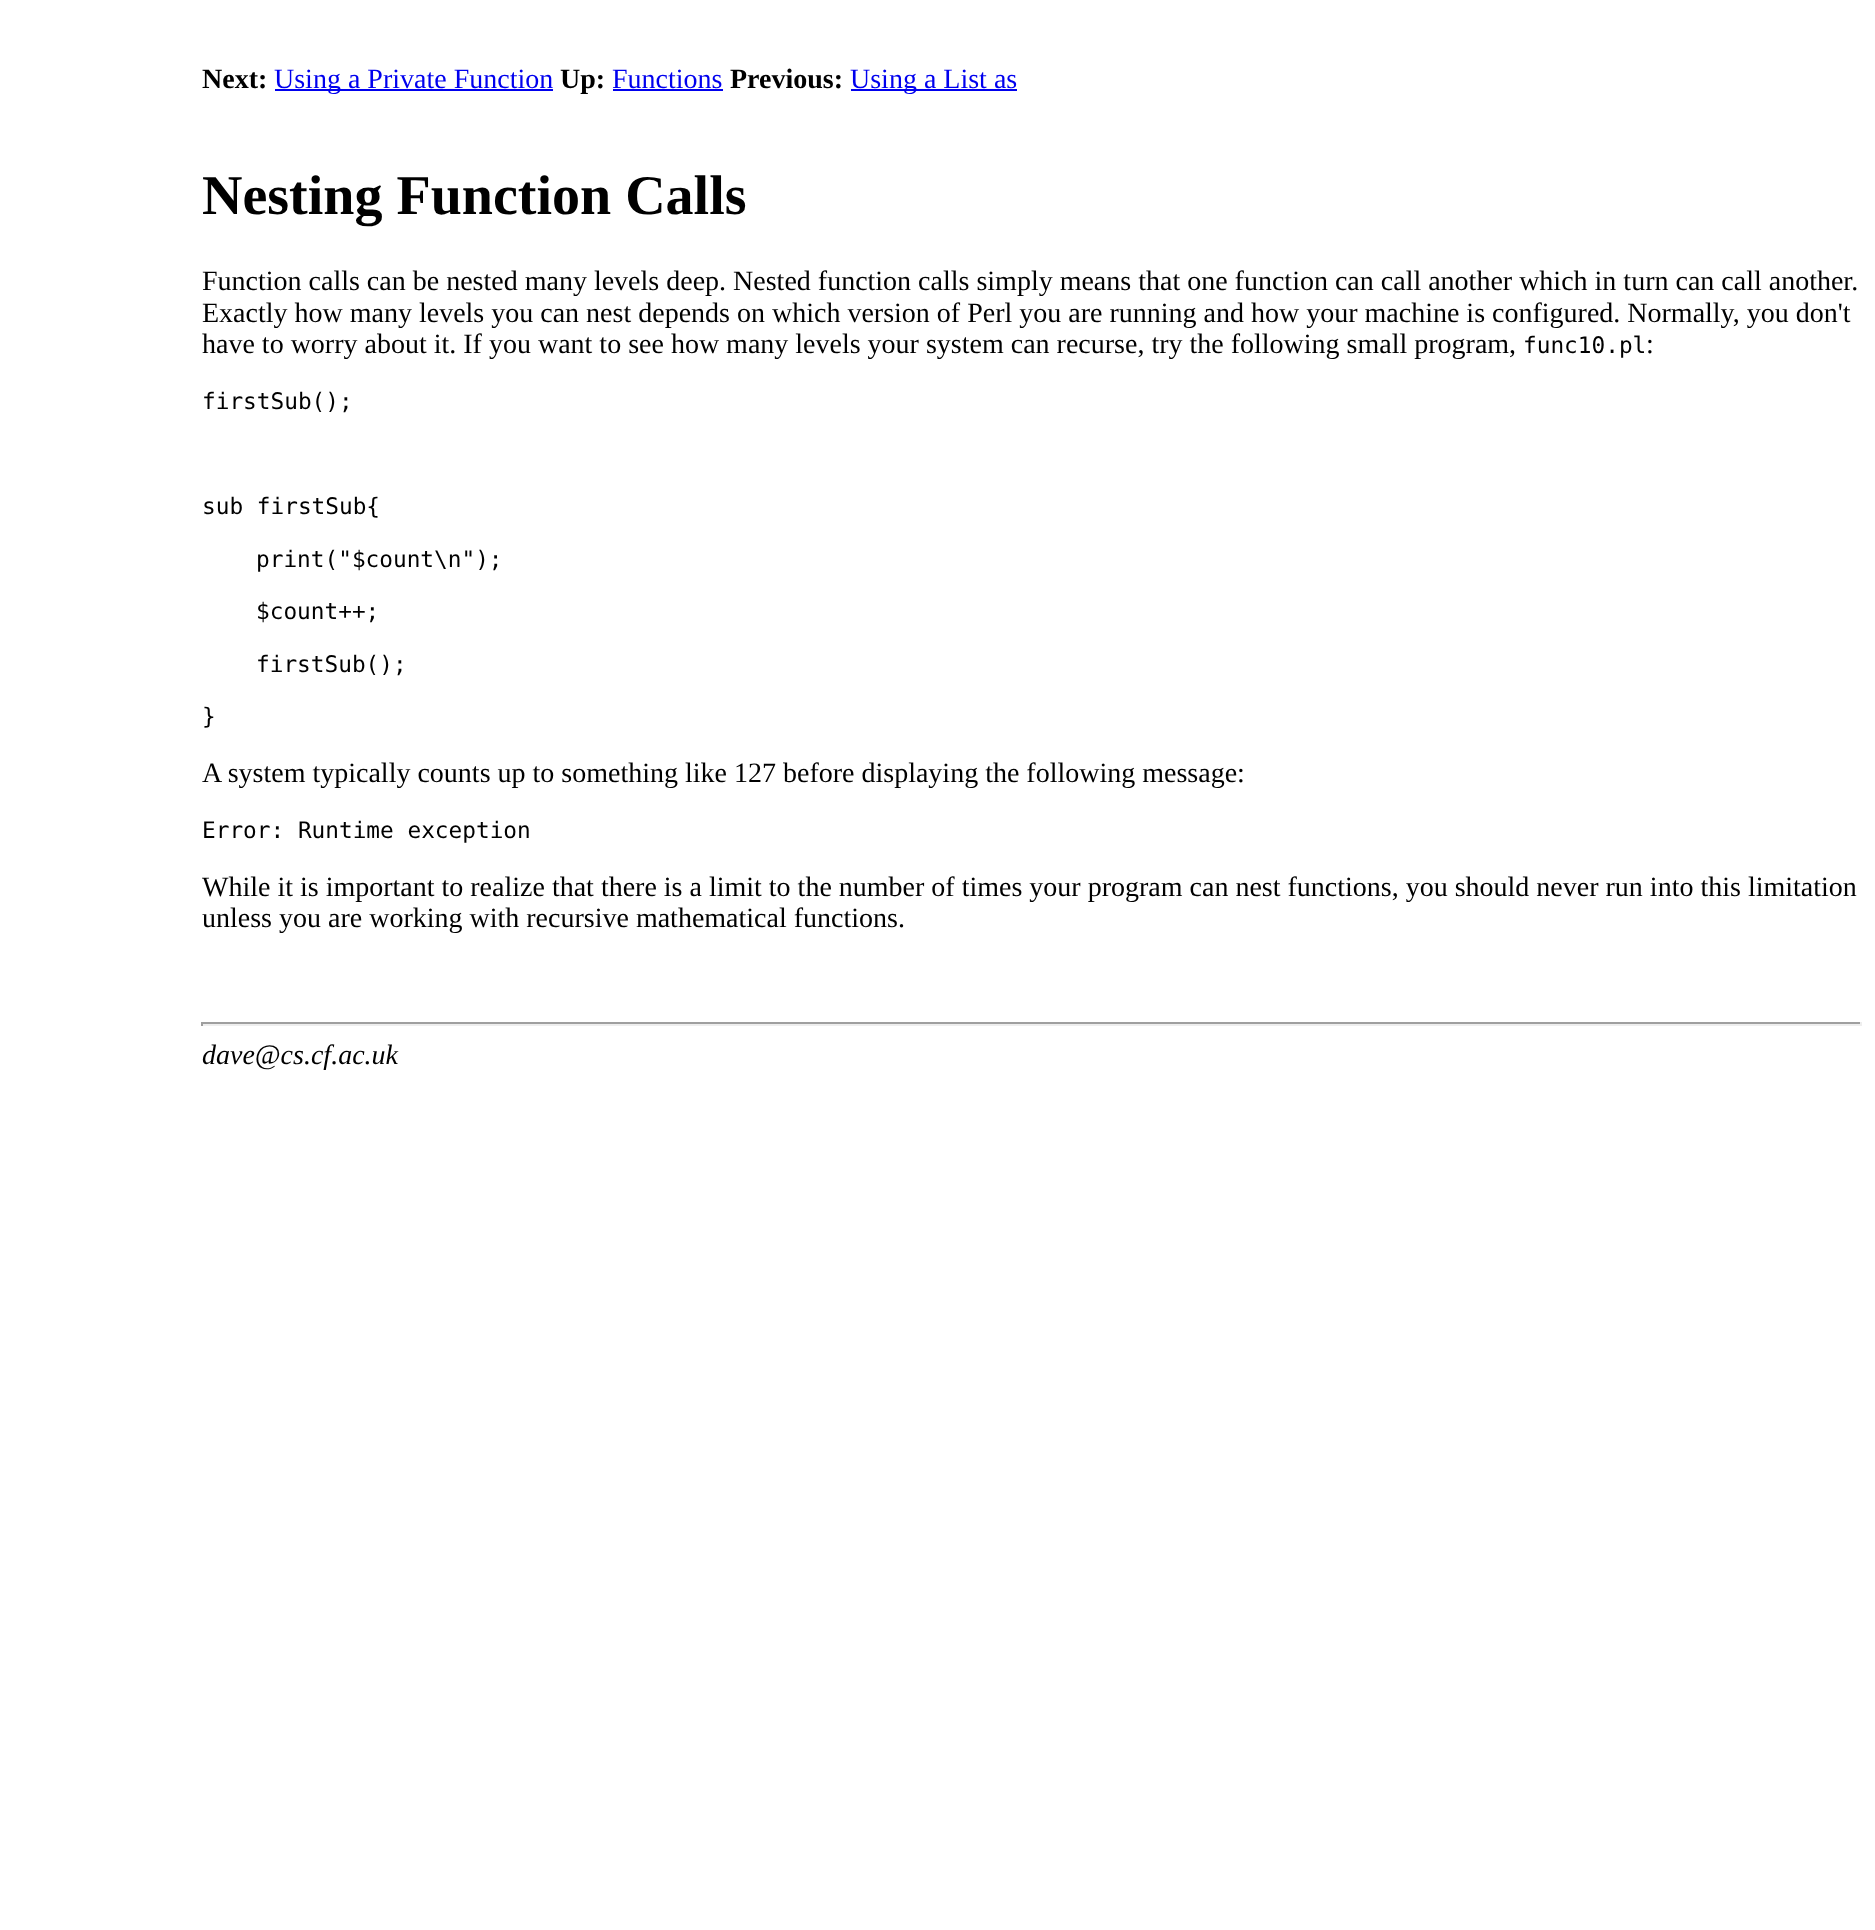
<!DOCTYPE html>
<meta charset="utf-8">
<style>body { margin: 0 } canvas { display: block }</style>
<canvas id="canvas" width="1875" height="1930"></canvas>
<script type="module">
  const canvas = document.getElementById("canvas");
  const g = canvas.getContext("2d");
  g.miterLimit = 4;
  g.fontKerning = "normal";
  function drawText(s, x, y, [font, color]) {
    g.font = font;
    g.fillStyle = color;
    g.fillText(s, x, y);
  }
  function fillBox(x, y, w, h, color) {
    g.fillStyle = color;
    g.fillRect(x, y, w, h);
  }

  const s1 = ["bold 28px Liberation Serif", "#000000"];
  const s2 = ["28px Liberation Serif", "#0000EE"];
  const s3 = ["bold 56px Liberation Serif", "#000000"];
  const s4 = ["28px Liberation Serif", "#000000"];
  const s5 = ["22.75px DejaVu Sans Mono", "#000000"];
  const s6 = ["italic 28px Liberation Serif", "#000000"];

  fillBox(0, 0, 1875, 1930, "#FFFFFF");
  drawText("Next:", 202, 88, s1);
  fillBox(275, 89, 278, 2, "#0000EE");
  drawText("Using a Private Function", 274, 88, s2);
  drawText("Up:", 560, 88, s1);
  drawText("Functions", 612, 88, s2);
  fillBox(613, 89, 110, 2, "#0000EE");
  drawText("Previous:", 730, 88, s1);
  fillBox(851, 89, 166, 2, "#0000EE");
  drawText("Using a List as", 850, 88, s2);
  drawText("Nesting Function Calls", 202, 214, s3);
  drawText("Function calls can be nested many levels deep. Nested function calls simply means that one function can call another which in turn can call another.", 202, 290, s4);
  drawText("Exactly how many levels you can nest depends on which version of Perl you are running and how your machine is configured. Normally, you don't", 202, 322, s4);
  drawText("have to worry about it. If you want to see how many levels your system can recurse, try the following small program,", 202, 353, s4);
  drawText("func10.pl", 1523, 353, s5);
  drawText(":", 1646, 353, s4);
  drawText("firstSub();", 202, 409, s5);
  drawText("sub firstSub{", 202, 514, s5);
  drawText("print(\"$count\\n\");", 256, 567, s5);
  drawText("$count++;", 256, 619, s5);
  drawText("firstSub();", 256, 672, s5);
  drawText("}", 202, 724, s5);
  drawText("A system typically counts up to something like 127 before displaying the following message:", 202, 782, s4);
  drawText("Error: Runtime exception", 202, 838, s5);
  drawText("While it is important to realize that there is a limit to the number of times your program can nest functions, you should never run into this limitation", 202, 896, s4);
  drawText("unless you are working with recursive mathematical functions.", 202, 927, s4);
  fillBox(201, 1022, 1661, 2, "#9F9F9F");
  fillBox(1860, 1022, 2, 4, "#EEEEEE");
  fillBox(201, 1024, 1661, 2, "#EEEEEE");
  fillBox(201, 1022, 2, 4, "#9F9F9F");
  drawText("dave@cs.cf.ac.uk", 202, 1064, s6);
</script>
